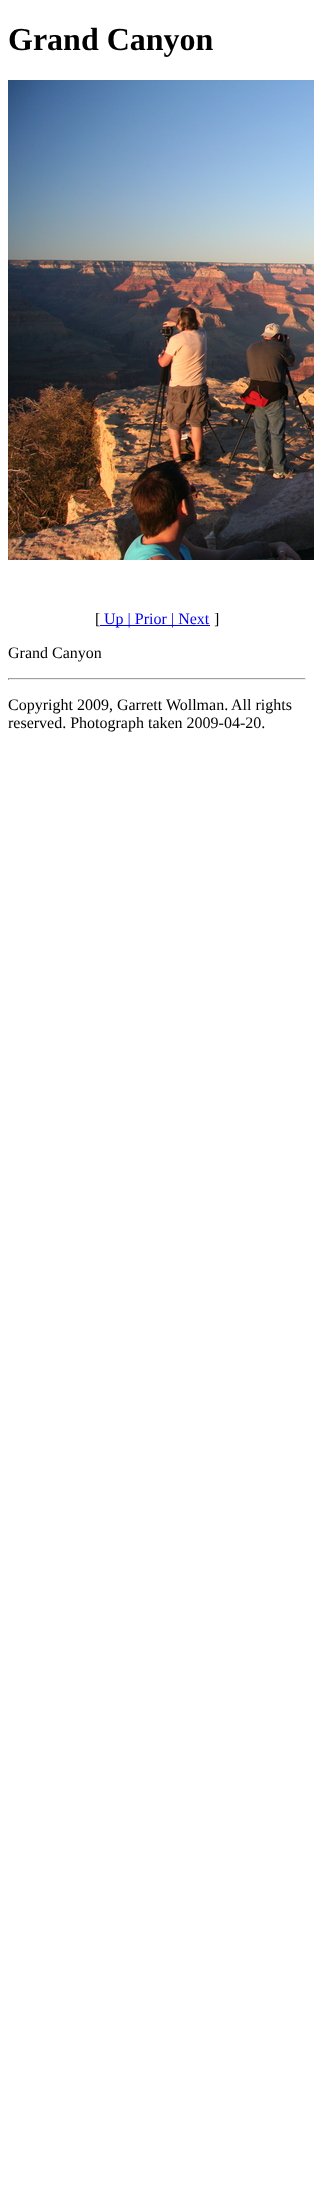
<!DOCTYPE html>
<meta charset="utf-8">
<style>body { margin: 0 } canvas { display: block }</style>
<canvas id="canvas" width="314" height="2185"></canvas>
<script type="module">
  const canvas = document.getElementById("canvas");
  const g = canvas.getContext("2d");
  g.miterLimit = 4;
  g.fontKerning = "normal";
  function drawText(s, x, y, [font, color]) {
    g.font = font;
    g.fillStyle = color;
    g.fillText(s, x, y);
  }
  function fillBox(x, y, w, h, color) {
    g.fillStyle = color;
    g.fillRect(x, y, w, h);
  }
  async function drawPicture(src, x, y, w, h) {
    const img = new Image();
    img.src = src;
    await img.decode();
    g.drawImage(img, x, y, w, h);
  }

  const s1 = ["bold 32px Liberation Serif", "#000000"];
  const s2 = ["16px Liberation Serif", "#000000"];
  const s3 = ["16px Liberation Serif", "#0000EE"];

  fillBox(0, 0, 314, 2185, "#FFFFFF");
  drawText("Grand Canyon", 8, 50, s1);
  await drawPicture("pic1.png", 8, 80, 306, 480);
  drawText("[", 95, 624, s2);
  fillBox(100, 625, 67, 1, "#0000EE");
  drawText("Up | Prior", 104, 624, s3);
  fillBox(167, 625, 43, 1, "#0000EE");
  drawText("| Next", 171, 624, s3);
  drawText("]", 214, 624, s2);
  drawText("Grand Canyon", 8, 658, s2);
  fillBox(8, 678, 298, 1, "#9F9F9F");
  fillBox(305, 678, 1, 2, "#EEEEEE");
  fillBox(8, 679, 298, 1, "#EEEEEE");
  fillBox(8, 678, 1, 2, "#9F9F9F");
  drawText("Copyright 2009, Garrett Wollman.", 8, 710, s2);
  drawText("All rights", 231, 710, s2);
  drawText("reserved. Photograph taken 2009-04-20.", 8, 728, s2);
</script>
